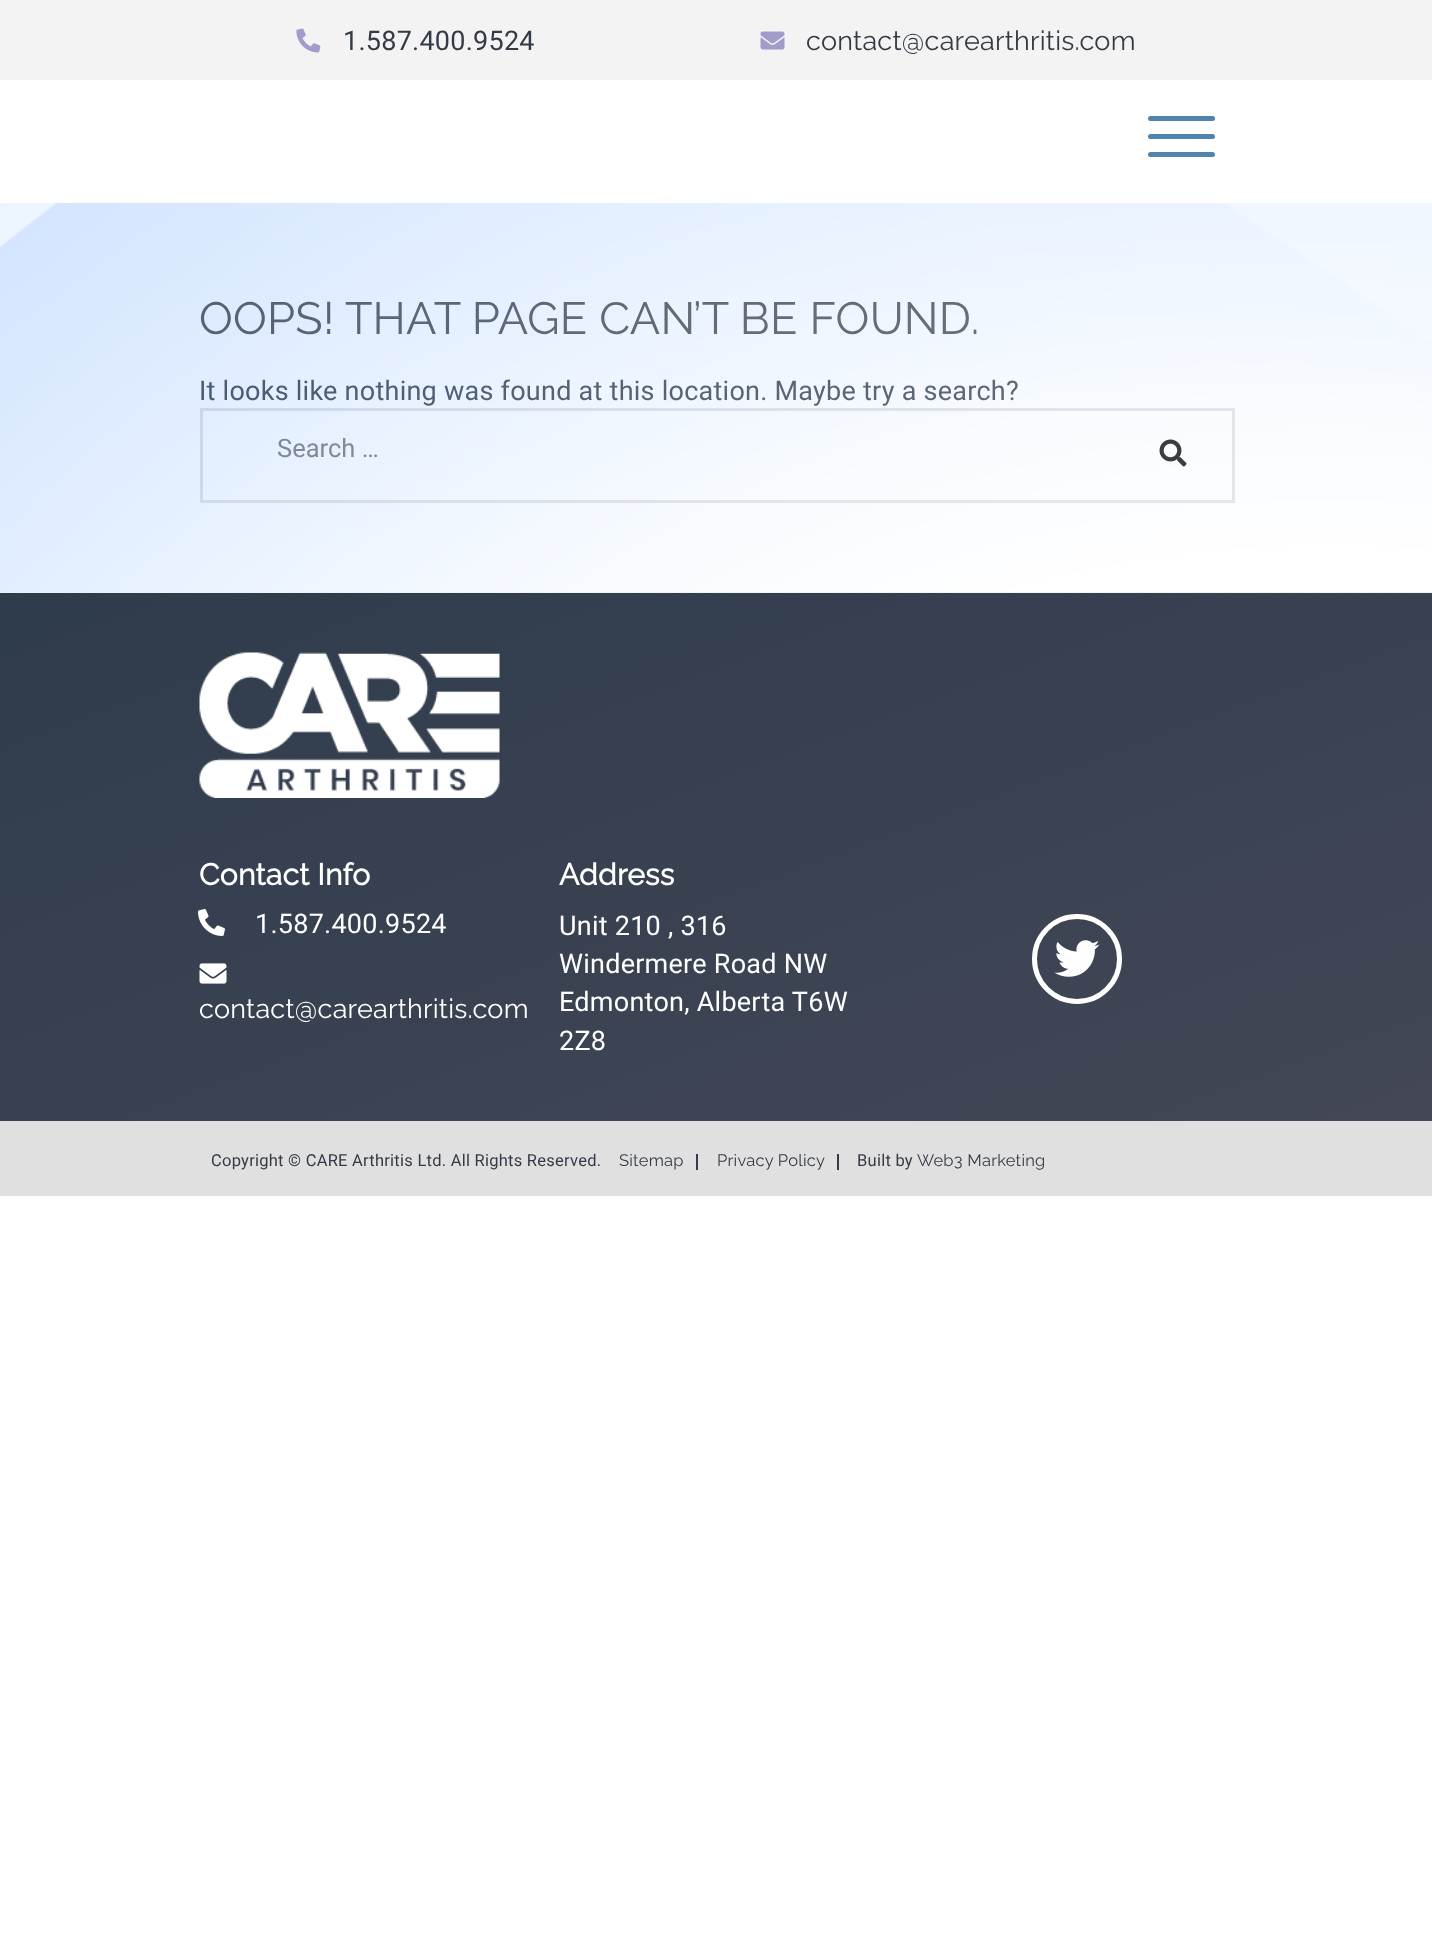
<!DOCTYPE html>
<meta charset="utf-8">
<style>body { margin: 0 } canvas { display: block }</style>
<canvas id="canvas" width="1432" height="1938"></canvas>
<script type="module">
  const canvas = document.getElementById("canvas");
  const g = canvas.getContext("2d");
  g.miterLimit = 4;
  g.fontKerning = "normal";
  function drawText(s, x, y, [font, color]) {
    g.font = font;
    g.fillStyle = color;
    g.fillText(s, x, y);
  }
  function fillBox(x, y, w, h, color) {
    g.fillStyle = color;
    g.fillRect(x, y, w, h);
  }
  function fillRounded(x, y, w, h, r, color) {
    g.fillStyle = color;
    g.beginPath();
    g.roundRect(x, y, w, h, r);
    g.fill();
  }
  async function drawPicture(src, x, y, w, h) {
    const img = new Image();
    img.src = src;
    await img.decode();
    g.drawImage(img, x, y, w, h);
  }
  let gradient;

  const s1 = ["27px Roboto", "#353B46"];
  const s2 = ["100 27px Raleway", "#353B46"];
  const s3 = ["100 45px Raleway", "#494848"];
  const s4 = ["25.5px Roboto", "#757575"];
  const s5 = ["bold 30px Raleway", "#FFFFFF"];
  const s6 = ["27px Roboto", "#FFFFFF"];
  const s7 = ["100 27px Raleway", "#FFFFFF"];
  const s8 = ["16.5px Roboto", "#353B46"];
  const s9 = ["100 16.5px Raleway", "#353B46"];

  fillBox(0, 0, 1432, 1938, "#FFFFFF");
  fillBox(0, 0, 1432, 80, "#F3F3F3");
  await drawPicture("pic1.png", 296, 28, 25, 25);
  g.letterSpacing = "0.25px";
  drawText("1.587.400.9524", 343, 50, s1);
  await drawPicture("pic2.png", 760, 31, 25, 19);
  drawText("contact@carearthritis.com", 806, 50, s2);
  fillRounded(1148, 116, 67, 5, 2.5, "#5084AF");
  fillRounded(1148, 134, 67, 5, 2.5, "#5084AF");
  fillRounded(1148, 152, 67, 5, 2.5, "#5084AF");
  drawText("OOPS! THAT PAGE CAN’T BE FOUND.", 199, 334, s3);
  drawText("It looks like nothing was found at this location. Maybe try a search?", 199, 400, s1);
  g.strokeStyle = "#E0E0E0";
  g.lineWidth = 3;
  g.strokeRect(201.5, 409.5, 1032, 92);
  g.letterSpacing = "0px";
  drawText("Search …", 277, 457, s4);
  await drawPicture("pic4.png", 1159, 439, 28, 28);
  await drawPicture("pic3.png", 0, 203, 1432, 390);
  await drawPicture("pic5.png", 0, 592, 1432, 1);
  gradient = g.createLinearGradient(545, 392, 888, 1321);
  gradient.addColorStop(0, "#2F3C4C");
  gradient.addColorStop(1, "#434756");
  g.fillStyle = gradient;
  g.fillRect(0, 593, 1432, 528);
  await drawPicture("pic6.png", 199, 652, 301, 146);
  g.letterSpacing = "0.25px";
  drawText("Contact Info", 199, 885, s5);
  await drawPicture("pic7.png", 198, 909, 27, 27);
  drawText("1.587.400.9524", 255, 933, s6);
  await drawPicture("pic8.png", 199, 963, 28, 21);
  drawText("contact@carearthritis.com", 199, 1018, s7);
  drawText("Address", 559, 885, s5);
  drawText("Unit 210 , 316", 559, 935, s6);
  drawText("Windermere Road NW", 559, 973, s6);
  drawText("Edmonton, Alberta T6W", 559, 1011, s6);
  drawText("2Z8", 559, 1050, s6);
  g.beginPath();
  g.arc(1077, 959, 42.5, 0, Math.PI * 2);
  g.strokeStyle = "#FFFFFF";
  g.lineWidth = 5;
  g.stroke();
  await drawPicture("pic9.png", 1054, 940, 46, 37);
  fillBox(0, 1121, 1432, 75, "#E0E0E0");
  drawText("Copyright © CARE Arthritis Ltd. All Rights Reserved.", 211, 1166, s8);
  fillBox(696, 1154, 2, 16, "#353B46");
  drawText("Sitemap", 619, 1166, s9);
  fillBox(837, 1154, 2, 16, "#353B46");
  drawText("Privacy Policy", 717, 1166, s9);
  drawText("Built by", 857, 1166, s8);
  drawText("Web3 Marketing", 917, 1166, s9);
</script>
